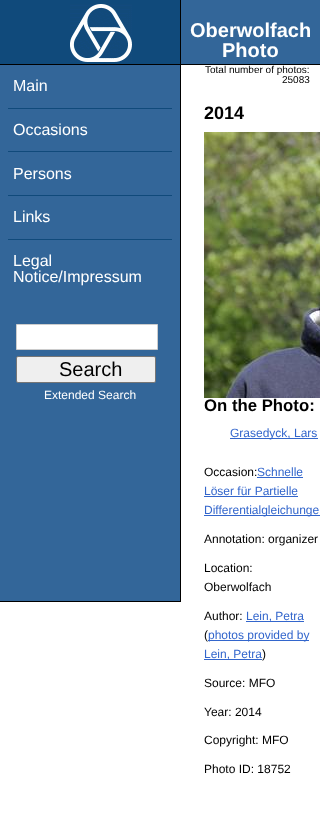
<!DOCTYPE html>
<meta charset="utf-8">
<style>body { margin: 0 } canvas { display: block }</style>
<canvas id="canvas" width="320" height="833"></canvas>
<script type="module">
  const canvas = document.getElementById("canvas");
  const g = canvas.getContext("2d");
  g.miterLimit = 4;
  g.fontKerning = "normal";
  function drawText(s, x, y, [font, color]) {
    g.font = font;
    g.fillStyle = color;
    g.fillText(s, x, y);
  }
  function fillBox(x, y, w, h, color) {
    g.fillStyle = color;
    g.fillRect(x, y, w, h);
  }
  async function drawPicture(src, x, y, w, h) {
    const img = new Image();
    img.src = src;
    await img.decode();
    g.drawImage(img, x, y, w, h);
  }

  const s1 = ["bold 20px Liberation Sans", "#FFFFFF"];
  const s2 = ["10px Liberation Sans", "#000000"];
  const s3 = ["16px Liberation Sans", "#FFFFFF"];
  const s4 = ["20px Liberation Sans", "#000000"];
  const s5 = ["12px Liberation Sans", "#FFFFFF"];
  const s6 = ["bold 18px Liberation Sans", "#000000"];
  const s7 = ["bold 16.75px Liberation Sans", "#000000"];
  const s8 = ["12px Liberation Sans", "#3366CC"];
  const s9 = ["12px Liberation Sans", "#000000"];

  fillBox(0, 0, 320, 833, "#FFFFFF");
  fillBox(181, 0, 139, 64, "#336699");
  fillBox(0, 64, 320, 1, "#000000");
  fillBox(0, 0, 180, 64, "#104A7B");
  fillBox(180, 0, 1, 64, "#000000");
  await drawPicture("pic1.png", 70, 4, 62, 58);
  drawText("Oberwolfach", 190, 37, s1);
  drawText("Photo", 222, 57, s1);
  drawText("Total number of photos:", 205, 73, s2);
  drawText("25083", 282, 83, s2);
  fillBox(0, 65, 180, 536, "#336699");
  fillBox(180, 65, 1, 537, "#000000");
  fillBox(0, 601, 181, 1, "#000000");
  drawText("Main", 13, 91, s3);
  fillBox(8, 108, 164, 1, "#104A7B");
  drawText("Occasions", 13, 135, s3);
  fillBox(8, 151, 164, 1, "#104A7B");
  drawText("Persons", 13, 179, s3);
  fillBox(8, 195, 164, 1, "#104A7B");
  drawText("Links", 13, 222, s3);
  fillBox(8, 239, 164, 1, "#104A7B");
  drawText("Legal", 13, 266, s3);
  drawText("Notice/Impressum", 13, 282, s3);
  g.beginPath();
  g.rect(16.5, 324.5, 141, 25);
  g.fill();
  g.strokeStyle = "#CCCCCC";
  g.stroke();
  g.fillStyle = "#EFEFEF";
  g.beginPath();
  g.roundRect(16.5, 356.5, 139, 26, 1.5);
  g.fill();
  g.strokeStyle = "#767676";
  g.stroke();
  drawText("Search", 59, 376, s4);
  drawText("Extended Search", 44, 399, s5);
  drawText("2014", 204, 119, s6);
  await drawPicture("pic2.png", 204, 132, 116, 266);
  drawText("On the Photo:", 204, 411, s7);
  fillBox(230, 438, 88, 1, "#3366CC");
  drawText("Grasedyck, Lars", 230, 437, s8);
  drawText("Occasion:", 204, 476, s9);
  drawText("Schnelle", 257, 476, s8);
  fillBox(257, 477, 46, 1, "#3366CC");
  drawText("Löser für Partielle", 204, 495, s8);
  fillBox(204, 496, 94, 1, "#3366CC");
  fillBox(204, 515, 116, 1, "#3366CC");
  drawText("Differentialgleichunge", 204, 514, s8);
  drawText("Annotation: organizer", 204, 543, s9);
  drawText("Location:", 204, 572, s9);
  drawText("Oberwolfach", 204, 591, s9);
  drawText("Author:", 204, 620, s9);
  fillBox(246, 621, 58, 1, "#3366CC");
  drawText("Lein, Petra", 246, 620, s8);
  drawText("(", 204, 639, s9);
  fillBox(208, 640, 101, 1, "#3366CC");
  drawText("photos provided by", 208, 639, s8);
  fillBox(204, 659, 58, 1, "#3366CC");
  drawText("Lein, Petra", 204, 658, s8);
  drawText(")", 262, 658, s9);
  drawText("Source: MFO", 204, 687, s9);
  drawText("Year: 2014", 204, 716, s9);
  drawText("Copyright: MFO", 204, 744, s9);
  drawText("Photo ID: 18752", 204, 773, s9);
</script>
